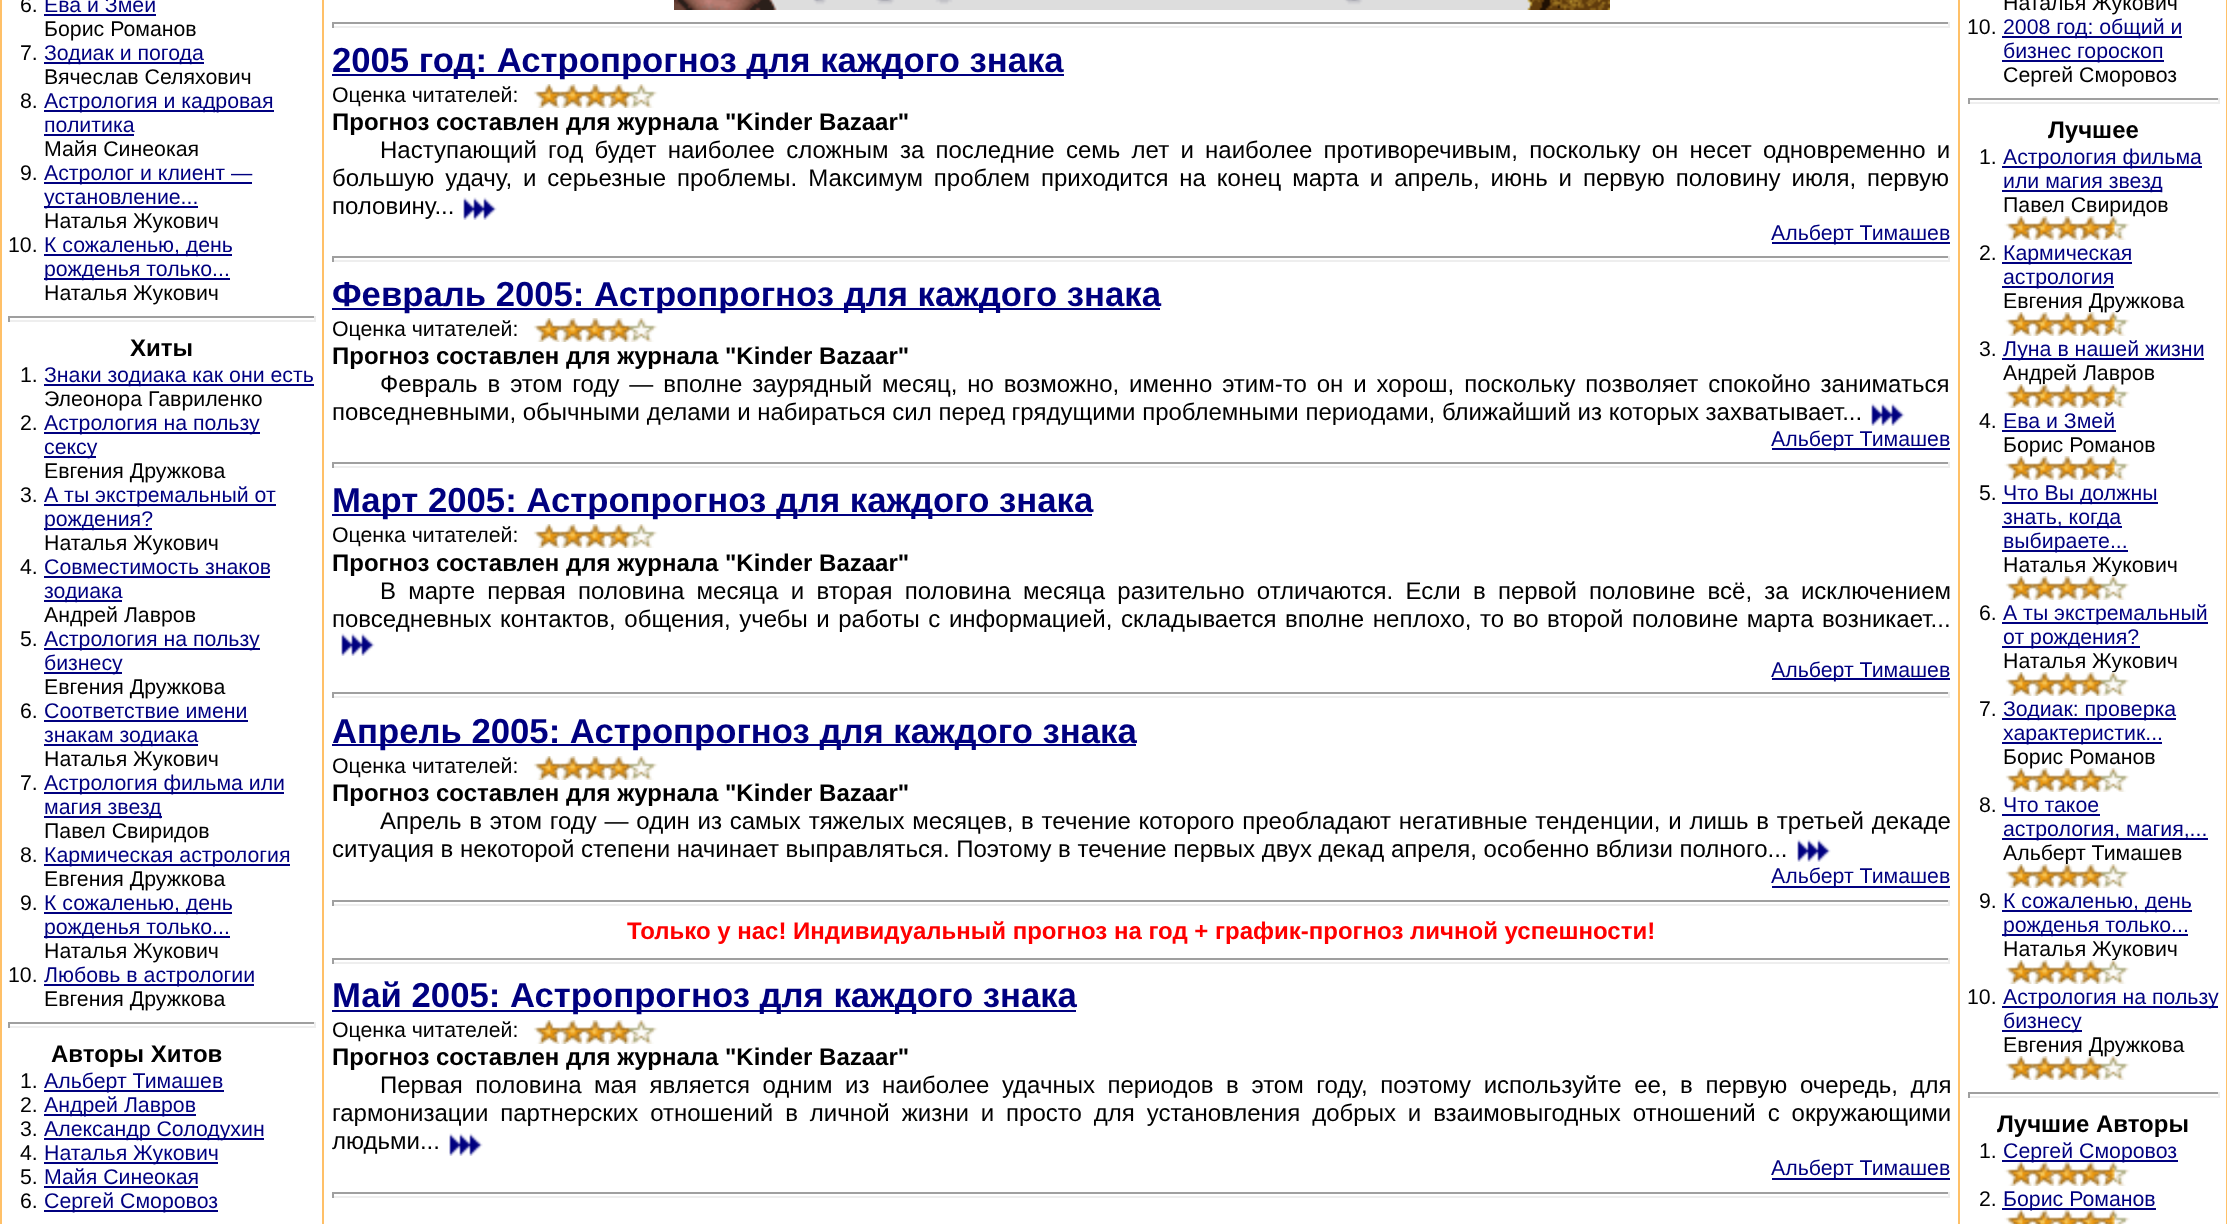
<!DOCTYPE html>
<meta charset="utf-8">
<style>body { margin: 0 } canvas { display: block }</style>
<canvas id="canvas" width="2227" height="1224"></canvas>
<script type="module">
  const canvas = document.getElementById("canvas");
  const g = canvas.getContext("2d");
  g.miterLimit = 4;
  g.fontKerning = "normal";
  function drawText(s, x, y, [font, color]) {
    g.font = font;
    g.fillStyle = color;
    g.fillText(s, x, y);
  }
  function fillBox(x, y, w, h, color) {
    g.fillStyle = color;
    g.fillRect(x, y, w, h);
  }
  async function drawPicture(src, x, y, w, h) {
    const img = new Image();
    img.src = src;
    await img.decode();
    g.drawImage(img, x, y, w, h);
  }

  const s1 = ["21.3px Liberation Sans", "#000000"];
  const s2 = ["21.3px Liberation Sans", "#000080"];
  const s3 = ["bold 24px Liberation Sans", "#000000"];
  const s4 = ["bold 34.7px Liberation Sans", "#000080"];
  const s5 = ["24px Liberation Sans", "#000000"];
  const s6 = ["bold 24px Liberation Sans", "#FF0000"];

  fillBox(0, 0, 2227, 1224, "#FFFFFF");
  fillBox(0, 0, 324, 1224, "#FFC068");
  fillBox(2, 0, 320, 1224, "#FFFFFF");
  drawText("6.", 20, 12, s1);
  drawText("Ева и Змей", 44, 12, s2);
  fillBox(44, 14, 112, 2, "#000080");
  drawText("Борис Романов", 44, 36, s1);
  drawText("7.", 20, 60, s1);
  fillBox(44, 62, 160, 2, "#000080");
  drawText("Зодиак и погода", 44, 60, s2);
  drawText("Вячеслав Селяхович", 44, 84, s1);
  drawText("8.", 20, 108, s1);
  fillBox(44, 110, 230, 2, "#000080");
  drawText("Астрология и кадровая", 44, 108, s2);
  drawText("политика", 44, 132, s2);
  fillBox(44, 134, 90, 2, "#000080");
  drawText("Майя Синеокая", 44, 156, s1);
  drawText("9.", 20, 180, s1);
  fillBox(44, 182, 208, 2, "#000080");
  drawText("Астролог и клиент —", 44, 180, s2);
  fillBox(44, 206, 154, 2, "#000080");
  drawText("установление...", 44, 204, s2);
  drawText("Наталья Жукович", 44, 228, s1);
  drawText("10.", 8, 252, s1);
  fillBox(44, 254, 188, 2, "#000080");
  drawText("К сожаленью, день", 44, 252, s2);
  fillBox(44, 278, 186, 2, "#000080");
  drawText("рожденья только...", 44, 276, s2);
  drawText("Наталья Жукович", 44, 300, s1);
  fillBox(8, 316, 308, 2, "#9F9F9F");
  fillBox(314, 316, 2, 6, "#EEEEEE");
  fillBox(8, 320, 308, 2, "#EEEEEE");
  fillBox(8, 316, 2, 6, "#9F9F9F");
  drawText("Хиты", 130, 356, s3);
  drawText("1.", 20, 382, s1);
  fillBox(44, 384, 270, 2, "#000080");
  drawText("Знаки зодиака как они есть", 44, 382, s2);
  drawText("Элеонора Гавриленко", 44, 406, s1);
  drawText("2.", 20, 430, s1);
  fillBox(44, 432, 216, 2, "#000080");
  drawText("Астрология на пользу", 44, 430, s2);
  fillBox(44, 456, 52, 2, "#000080");
  drawText("сексу", 44, 454, s2);
  drawText("Евгения Дружкова", 44, 478, s1);
  drawText("3.", 20, 502, s1);
  fillBox(44, 504, 232, 2, "#000080");
  drawText("А ты экстремальный от", 44, 502, s2);
  fillBox(44, 528, 108, 2, "#000080");
  drawText("рождения?", 44, 526, s2);
  drawText("Наталья Жукович", 44, 550, s1);
  drawText("4.", 20, 574, s1);
  drawText("Совместимость знаков", 44, 574, s2);
  fillBox(44, 576, 226, 2, "#000080");
  fillBox(44, 600, 78, 2, "#000080");
  drawText("зодиака", 44, 598, s2);
  drawText("Андрей Лавров", 44, 622, s1);
  drawText("5.", 20, 646, s1);
  fillBox(44, 648, 216, 2, "#000080");
  drawText("Астрология на пользу", 44, 646, s2);
  fillBox(44, 672, 78, 2, "#000080");
  drawText("бизнесу", 44, 670, s2);
  drawText("Евгения Дружкова", 44, 694, s1);
  drawText("6.", 20, 718, s1);
  drawText("Соответствие имени", 44, 718, s2);
  fillBox(44, 720, 204, 2, "#000080");
  fillBox(44, 744, 154, 2, "#000080");
  drawText("знакам зодиака", 44, 742, s2);
  drawText("Наталья Жукович", 44, 766, s1);
  drawText("7.", 20, 790, s1);
  fillBox(44, 792, 240, 2, "#000080");
  drawText("Астрология фильма или", 44, 790, s2);
  fillBox(44, 816, 118, 2, "#000080");
  drawText("магия звезд", 44, 814, s2);
  drawText("Павел Свиридов", 44, 838, s1);
  drawText("8.", 20, 862, s1);
  fillBox(44, 864, 246, 2, "#000080");
  drawText("Кармическая астрология", 44, 862, s2);
  drawText("Евгения Дружкова", 44, 886, s1);
  drawText("9.", 20, 910, s1);
  fillBox(44, 912, 188, 2, "#000080");
  drawText("К сожаленью, день", 44, 910, s2);
  fillBox(44, 936, 186, 2, "#000080");
  drawText("рожденья только...", 44, 934, s2);
  drawText("Наталья Жукович", 44, 958, s1);
  drawText("10.", 8, 982, s1);
  fillBox(44, 984, 210, 2, "#000080");
  drawText("Любовь в астрологии", 44, 982, s2);
  drawText("Евгения Дружкова", 44, 1006, s1);
  fillBox(8, 1022, 308, 2, "#9F9F9F");
  fillBox(314, 1022, 2, 6, "#EEEEEE");
  fillBox(8, 1026, 308, 2, "#EEEEEE");
  fillBox(8, 1022, 2, 6, "#9F9F9F");
  drawText("Авторы Хитов", 51, 1062, s3);
  drawText("1.", 20, 1088, s1);
  fillBox(44, 1090, 180, 2, "#000080");
  drawText("Альберт Тимашев", 44, 1088, s2);
  drawText("2.", 20, 1112, s1);
  fillBox(44, 1114, 152, 2, "#000080");
  drawText("Андрей Лавров", 44, 1112, s2);
  drawText("3.", 20, 1136, s1);
  fillBox(44, 1138, 220, 2, "#000080");
  drawText("Александр Солодухин", 44, 1136, s2);
  drawText("4.", 20, 1160, s1);
  fillBox(44, 1162, 174, 2, "#000080");
  drawText("Наталья Жукович", 44, 1160, s2);
  drawText("5.", 20, 1184, s1);
  drawText("Майя Синеокая", 44, 1184, s2);
  fillBox(44, 1186, 154, 2, "#000080");
  drawText("6.", 20, 1208, s1);
  fillBox(44, 1210, 174, 2, "#000080");
  drawText("Сергей Сморовоз", 44, 1208, s2);
  await drawPicture("pic1.png", 674, 0, 936, 10);
  fillBox(332, 22, 1618, 2, "#9F9F9F");
  fillBox(1948, 22, 2, 6, "#EEEEEE");
  fillBox(332, 26, 1618, 2, "#EEEEEE");
  fillBox(332, 22, 2, 6, "#9F9F9F");
  fillBox(332, 74, 732, 2, "#000080");
  drawText("2005 год: Астропрогноз для каждого знака", 332, 72, s4);
  drawText("Оценка читателей:", 332, 102, s1);
  await drawPicture("pic2.png", 533, 84, 125, 24);
  drawText("Прогноз составлен для журнала \"Kinder Bazaar\"", 332, 130, s3);
  g.wordSpacing = "4.6px";
  drawText("Наступающий год будет наиболее сложным за последние семь лет и наиболее противоречивым, поскольку он несет одновременно и", 380, 158, s5);
  g.wordSpacing = "4.25px";
  drawText("большую удачу, и серьезные проблемы. Максимум проблем приходится на конец марта и апрель, июнь и первую половину июля, первую", 332, 186, s5);
  g.wordSpacing = "0px";
  drawText("половину...", 332, 214, s5);
  await drawPicture("pic3.png", 463, 197, 34, 23);
  fillBox(1772, 242, 178, 2, "#000080");
  drawText("Альберт Тимашев", 1771, 240, s2);
  fillBox(332, 256, 1618, 2, "#9F9F9F");
  fillBox(1948, 256, 2, 6, "#EEEEEE");
  fillBox(332, 260, 1618, 2, "#EEEEEE");
  fillBox(332, 256, 2, 6, "#9F9F9F");
  fillBox(332, 308, 828, 2, "#000080");
  drawText("Февраль 2005: Астропрогноз для каждого знака", 332, 306, s4);
  drawText("Оценка читателей:", 332, 336, s1);
  await drawPicture("pic2.png", 533, 318, 125, 24);
  drawText("Прогноз составлен для журнала \"Kinder Bazaar\"", 332, 364, s3);
  g.wordSpacing = "3.25px";
  drawText("Февраль в этом году — вполне заурядный месяц, но возможно, именно этим-то он и хорош, поскольку позволяет спокойно заниматься", 380, 392, s5);
  g.wordSpacing = "0px";
  drawText("повседневными, обычными делами и набираться сил перед грядущими проблемными периодами, ближайший из которых захватывает...", 332, 420, s5);
  await drawPicture("pic3.png", 1871, 403, 34, 23);
  fillBox(1772, 448, 178, 2, "#000080");
  drawText("Альберт Тимашев", 1771, 446, s2);
  fillBox(332, 462, 1618, 2, "#9F9F9F");
  fillBox(1948, 462, 2, 6, "#EEEEEE");
  fillBox(332, 466, 1618, 2, "#EEEEEE");
  fillBox(332, 462, 2, 6, "#9F9F9F");
  fillBox(332, 514, 760, 2, "#000080");
  drawText("Март 2005: Астропрогноз для каждого знака", 332, 512, s4);
  drawText("Оценка читателей:", 332, 542, s1);
  await drawPicture("pic2.png", 533, 524, 125, 24);
  drawText("Прогноз составлен для журнала \"Kinder Bazaar\"", 332, 571, s3);
  g.wordSpacing = "5.6px";
  drawText("В марте первая половина месяца и вторая половина месяца разительно отличаются. Если в первой половине всё, за исключением", 380, 599, s5);
  g.wordSpacing = "1.9px";
  drawText("повседневных контактов, общения, учебы и работы с информацией, складывается вполне неплохо, то во второй половине марта возникает...", 332, 627, s5);
  await drawPicture("pic3.png", 341, 633, 34, 23);
  fillBox(1772, 678, 178, 2, "#000080");
  g.wordSpacing = "0px";
  drawText("Альберт Тимашев", 1771, 677, s2);
  fillBox(332, 692, 1618, 2, "#9F9F9F");
  fillBox(1948, 692, 2, 6, "#EEEEEE");
  fillBox(332, 696, 1618, 2, "#EEEEEE");
  fillBox(332, 692, 2, 6, "#9F9F9F");
  fillBox(332, 744, 804, 2, "#000080");
  drawText("Апрель 2005: Астропрогноз для каждого знака", 332, 743, s4);
  drawText("Оценка читателей:", 332, 773, s1);
  await drawPicture("pic2.png", 533, 756, 125, 24);
  drawText("Прогноз составлен для журнала \"Kinder Bazaar\"", 332, 801, s3);
  g.wordSpacing = "1.1px";
  drawText("Апрель в этом году — один из самых тяжелых месяцев, в течение которого преобладают негативные тенденции, и лишь в третьей декаде", 380, 829, s5);
  g.wordSpacing = "0px";
  drawText("ситуация в некоторой степени начинает выправляться. Поэтому в течение первых двух декад апреля, особенно вблизи полного...", 332, 857, s5);
  await drawPicture("pic3.png", 1797, 839, 34, 23);
  fillBox(1772, 886, 178, 2, "#000080");
  drawText("Альберт Тимашев", 1771, 883, s2);
  fillBox(332, 900, 1618, 2, "#9F9F9F");
  fillBox(1948, 900, 2, 6, "#EEEEEE");
  fillBox(332, 904, 1618, 2, "#EEEEEE");
  fillBox(332, 900, 2, 6, "#9F9F9F");
  drawText("Только у нас! Индивидуальный прогноз на год + график-прогноз личной успешности!", 627, 939, s6);
  fillBox(332, 958, 1618, 2, "#9F9F9F");
  fillBox(1948, 958, 2, 6, "#EEEEEE");
  fillBox(332, 962, 1618, 2, "#EEEEEE");
  fillBox(332, 958, 2, 6, "#9F9F9F");
  fillBox(332, 1010, 744, 2, "#000080");
  drawText("Май 2005: Астропрогноз для каждого знака", 332, 1007, s4);
  drawText("Оценка читателей:", 332, 1037, s1);
  await drawPicture("pic2.png", 533, 1020, 125, 24);
  drawText("Прогноз составлен для журнала \"Kinder Bazaar\"", 332, 1065, s3);
  g.wordSpacing = "5.9px";
  drawText("Первая половина мая является одним из наиболее удачных периодов в этом году, поэтому используйте ее, в первую очередь, для", 380, 1093, s5);
  g.wordSpacing = "5.25px";
  drawText("гармонизации партнерских отношений в личной жизни и просто для установления добрых и взаимовыгодных отношений с окружающими", 332, 1121, s5);
  g.wordSpacing = "0px";
  drawText("людьми...", 332, 1149, s5);
  await drawPicture("pic3.png", 449, 1133, 34, 23);
  fillBox(1772, 1178, 178, 2, "#000080");
  drawText("Альберт Тимашев", 1771, 1175, s2);
  fillBox(332, 1192, 1618, 2, "#9F9F9F");
  fillBox(1948, 1192, 2, 6, "#EEEEEE");
  fillBox(332, 1196, 1618, 2, "#EEEEEE");
  fillBox(332, 1192, 2, 6, "#9F9F9F");
  fillBox(1958, 0, 269, 1224, "#FFC068");
  fillBox(1960, 0, 266, 1224, "#FFFFFF");
  drawText("Наталья Жукович", 2003, 10, s1);
  drawText("10.", 1967, 34, s1);
  fillBox(2002, 36, 180, 2, "#000080");
  drawText("2008 год: общий и", 2003, 34, s2);
  fillBox(2002, 60, 162, 2, "#000080");
  drawText("бизнес гороскоп", 2003, 58, s2);
  drawText("Сергей Сморовоз", 2003, 82, s1);
  fillBox(1968, 98, 252, 2, "#9F9F9F");
  fillBox(2218, 98, 2, 6, "#EEEEEE");
  fillBox(1968, 102, 252, 2, "#EEEEEE");
  fillBox(1968, 98, 2, 6, "#9F9F9F");
  drawText("Лучшее", 2048, 138, s3);
  drawText("1.", 1979, 164, s1);
  fillBox(2002, 166, 200, 2, "#000080");
  drawText("Астрология фильма", 2003, 164, s2);
  fillBox(2002, 190, 160, 2, "#000080");
  drawText("или магия звезд", 2003, 188, s2);
  drawText("Павел Свиридов", 2003, 212, s1);
  await drawPicture("pic4.png", 2004, 216, 126, 24);
  drawText("2.", 1979, 260, s1);
  fillBox(2002, 262, 130, 2, "#000080");
  drawText("Кармическая", 2003, 260, s2);
  fillBox(2002, 286, 112, 2, "#000080");
  drawText("астрология", 2003, 284, s2);
  drawText("Евгения Дружкова", 2003, 308, s1);
  await drawPicture("pic5.png", 2004, 312, 126, 24);
  drawText("3.", 1979, 356, s1);
  fillBox(2002, 358, 202, 2, "#000080");
  drawText("Луна в нашей жизни", 2003, 356, s2);
  drawText("Андрей Лавров", 2003, 380, s1);
  await drawPicture("pic6.png", 2004, 384, 126, 24);
  drawText("4.", 1979, 428, s1);
  drawText("Ева и Змей", 2003, 428, s2);
  fillBox(2002, 430, 114, 2, "#000080");
  drawText("Борис Романов", 2003, 452, s1);
  await drawPicture("pic7.png", 2004, 456, 126, 24);
  drawText("5.", 1979, 500, s1);
  fillBox(2002, 502, 156, 2, "#000080");
  drawText("Что Вы должны", 2003, 500, s2);
  fillBox(2002, 526, 120, 2, "#000080");
  drawText("знать, когда", 2003, 524, s2);
  fillBox(2002, 550, 126, 2, "#000080");
  drawText("выбираете...", 2003, 548, s2);
  drawText("Наталья Жукович", 2003, 572, s1);
  await drawPicture("pic8.png", 2005, 576, 125, 24);
  drawText("6.", 1979, 620, s1);
  fillBox(2002, 622, 206, 2, "#000080");
  drawText("А ты экстремальный", 2003, 620, s2);
  fillBox(2002, 646, 138, 2, "#000080");
  drawText("от рождения?", 2003, 644, s2);
  drawText("Наталья Жукович", 2003, 668, s1);
  await drawPicture("pic8.png", 2005, 672, 125, 24);
  drawText("7.", 1979, 716, s1);
  fillBox(2002, 718, 174, 2, "#000080");
  drawText("Зодиак: проверка", 2003, 716, s2);
  fillBox(2002, 742, 160, 2, "#000080");
  drawText("характеристик...", 2003, 740, s2);
  drawText("Борис Романов", 2003, 764, s1);
  await drawPicture("pic9.png", 2005, 768, 125, 24);
  drawText("8.", 1979, 812, s1);
  drawText("Что такое", 2003, 812, s2);
  fillBox(2002, 814, 98, 2, "#000080");
  fillBox(2002, 838, 206, 2, "#000080");
  drawText("астрология, магия,...", 2003, 836, s2);
  drawText("Альберт Тимашев", 2003, 860, s1);
  await drawPicture("pic10.png", 2005, 864, 125, 24);
  drawText("9.", 1979, 908, s1);
  fillBox(2002, 910, 190, 2, "#000080");
  drawText("К сожаленью, день", 2003, 908, s2);
  fillBox(2002, 934, 186, 2, "#000080");
  drawText("рожденья только...", 2003, 932, s2);
  drawText("Наталья Жукович", 2003, 956, s1);
  await drawPicture("pic8.png", 2005, 960, 125, 24);
  drawText("10.", 1967, 1004, s1);
  fillBox(2002, 1006, 216, 2, "#000080");
  drawText("Астрология на пользу", 2003, 1004, s2);
  fillBox(2002, 1030, 80, 2, "#000080");
  drawText("бизнесу", 2003, 1028, s2);
  drawText("Евгения Дружкова", 2003, 1052, s1);
  await drawPicture("pic11.png", 2005, 1056, 125, 24);
  fillBox(1968, 1092, 252, 2, "#9F9F9F");
  fillBox(2218, 1092, 2, 6, "#EEEEEE");
  fillBox(1968, 1096, 252, 2, "#EEEEEE");
  fillBox(1968, 1092, 2, 6, "#9F9F9F");
  drawText("Лучшие Авторы", 1997, 1132, s3);
  drawText("1.", 1979, 1158, s1);
  fillBox(2002, 1160, 176, 2, "#000080");
  drawText("Сергей Сморовоз", 2003, 1158, s2);
  await drawPicture("pic12.png", 2004, 1162, 126, 24);
  drawText("2.", 1979, 1206, s1);
  fillBox(2002, 1208, 154, 2, "#000080");
  drawText("Борис Романов", 2003, 1206, s2);
  await drawPicture("pic13.png", 2004, 1210, 126, 14);
</script>
